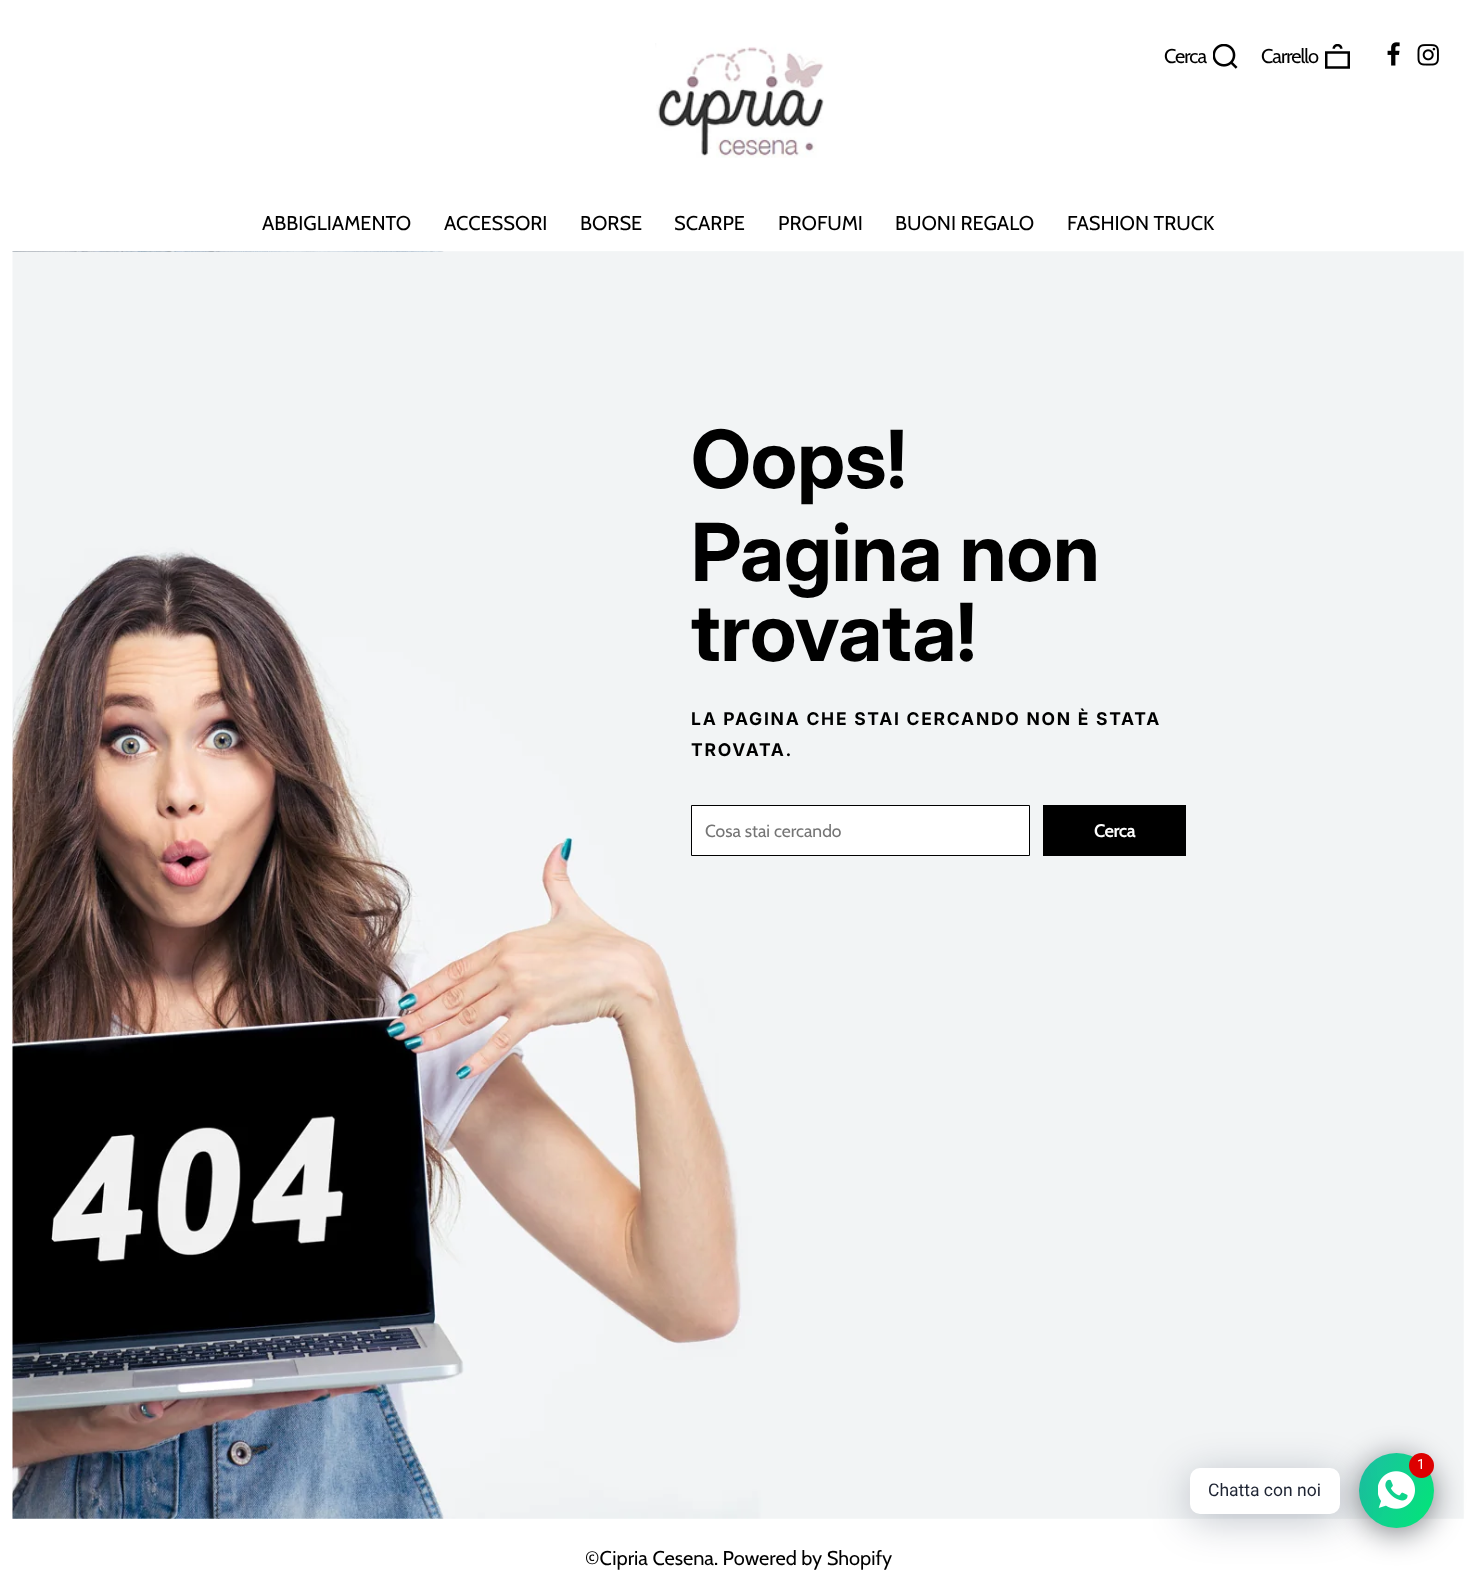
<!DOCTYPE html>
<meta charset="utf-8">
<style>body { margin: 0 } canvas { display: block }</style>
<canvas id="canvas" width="1476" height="1584"></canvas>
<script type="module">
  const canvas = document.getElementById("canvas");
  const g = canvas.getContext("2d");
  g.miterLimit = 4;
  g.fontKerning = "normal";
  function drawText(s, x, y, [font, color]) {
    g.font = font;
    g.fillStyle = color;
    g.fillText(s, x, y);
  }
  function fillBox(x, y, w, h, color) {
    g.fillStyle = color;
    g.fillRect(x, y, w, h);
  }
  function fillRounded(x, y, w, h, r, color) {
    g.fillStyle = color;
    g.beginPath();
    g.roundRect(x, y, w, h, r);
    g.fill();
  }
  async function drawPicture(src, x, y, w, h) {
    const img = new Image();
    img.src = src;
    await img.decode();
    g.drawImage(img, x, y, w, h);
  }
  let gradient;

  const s1 = ["20px Cabin", "#000000"];
  const s2 = ["bold 80px Inter", "#000000"];
  const s3 = ["bold 17.5px 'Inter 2'", "#000000"];
  const s4 = ["17.5px Cabin", "#757575"];
  const s5 = ["bold 17.5px Cabin", "#FFFFFF"];
  const s6 = ["14px Roboto", "#FFFFFF"];
  const s7 = ["17.5px Roboto", "#1E2433"];

  fillBox(0, 0, 1476, 1584, "#FFFFFF");
  await drawPicture("pic1.png", 655, 43, 169, 115);
  g.letterSpacing = "-1px";
  drawText("Cerca", 1164, 63, s1);
  await drawPicture("pic2.png", 1213, 44, 25, 25);
  drawText("Carrello", 1261, 63, s1);
  await drawPicture("pic3.png", 1325, 44, 25, 25);
  await drawPicture("pic4.png", 1387, 42, 13, 24);
  await drawPicture("pic5.png", 1417, 44, 22, 22);
  g.letterSpacing = "0px";
  drawText("ABBIGLIAMENTO", 262, 230, s1);
  drawText("ACCESSORI", 444, 230, s1);
  drawText("BORSE", 580, 230, s1);
  drawText("SCARPE", 674, 230, s1);
  drawText("PROFUMI", 778, 230, s1);
  drawText("BUONI REGALO", 895, 230, s1);
  drawText("FASHION TRUCK", 1067, 230, s1);
  await drawPicture("pic6.png", 12, 251, 1452, 1268);
  drawText("Oops!", 691, 488, s2);
  drawText("Pagina non", 691, 581, s2);
  drawText("trovata!", 691, 661, s2);
  g.letterSpacing = "1.75px";
  drawText("LA PAGINA CHE STAI CERCANDO NON È STATA", 691, 725, s3);
  drawText("TROVATA.", 691, 756, s3);
  g.fillStyle = "#FFFFFF";
  g.beginPath();
  g.rect(691.5, 805.5, 338, 50);
  g.fill();
  g.strokeStyle = "#000000";
  g.stroke();
  g.letterSpacing = "0px";
  drawText("Cosa stai cercando", 705, 837, s4);
  fillBox(1043, 805, 143, 51, "#000000");
  drawText("Cerca", 1094, 837, s5);
  drawText("©Cipria Cesena. Powered by Shopify", 585, 1565, s1);
  g.fillStyle = "rgba(2, 6, 16, 0.5)";
  g.filter = "blur(15px)";
  g.beginPath();
  g.roundRect(1359, 1458, 75, 75, 37.5);
  g.fill();
  g.filter = "none";
  gradient = g.createLinearGradient(1351, 1469, 1441, 1511);
  gradient.addColorStop(0, "#1EBEA5");
  gradient.addColorStop(1, "#01E677");
  g.fillStyle = gradient;
  g.beginPath();
  g.arc(1396.5, 1490.5, 37.5, 0, Math.PI * 2);
  g.fill();
  g.fillStyle = "rgba(0, 18, 46, 0.24)";
  g.filter = "blur(20px)";
  g.beginPath();
  g.roundRect(1190, 1475, 150, 46, 10);
  g.fill();
  g.filter = "none";
  await drawPicture("pic7.png", 1378, 1471, 37, 38);
  g.fillStyle = "#DD0000";
  g.beginPath();
  g.arc(1421.5, 1465.5, 12.5, 0, Math.PI * 2);
  g.fill();
  drawText("1", 1417, 1469, s6);
  fillRounded(1190, 1468, 150, 46, 10, "#FFFFFF");
  drawText("Chatta con noi", 1208, 1496, s7);
</script>
